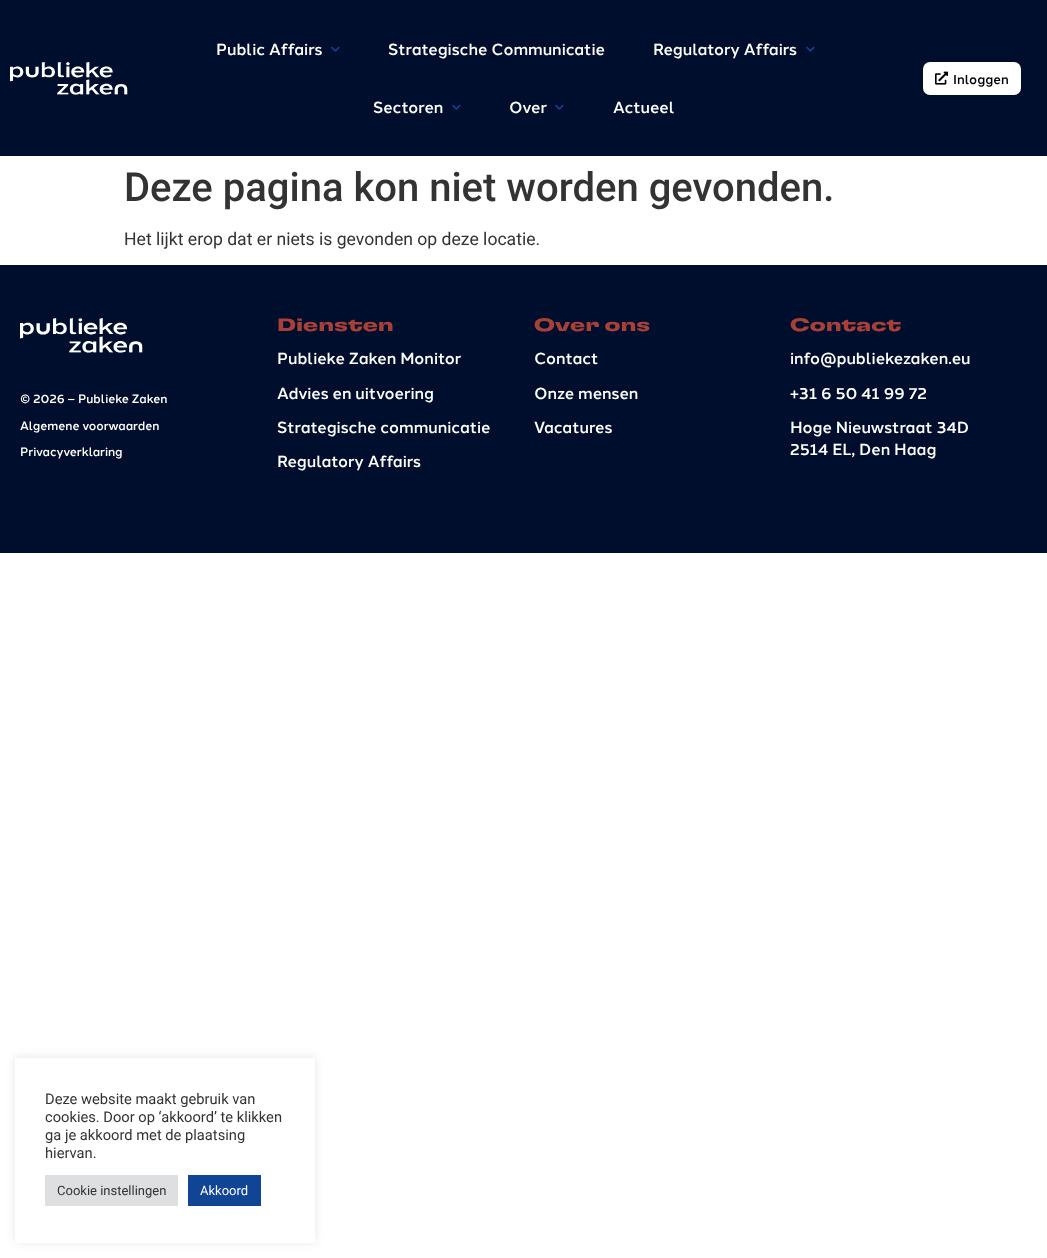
<!DOCTYPE html>
<meta charset="utf-8">
<style>body { margin: 0 } canvas { display: block }</style>
<canvas id="canvas" width="1047" height="1258"></canvas>
<script type="module">
  const canvas = document.getElementById("canvas");
  const g = canvas.getContext("2d");
  g.miterLimit = 4;
  g.fontKerning = "normal";
  function drawText(s, x, y, [font, color]) {
    g.font = font;
    g.fillStyle = color;
    g.fillText(s, x, y);
  }
  function fillBox(x, y, w, h, color) {
    g.fillStyle = color;
    g.fillRect(x, y, w, h);
  }
  function fillRounded(x, y, w, h, r, color) {
    g.fillStyle = color;
    g.beginPath();
    g.roundRect(x, y, w, h, r);
    g.fill();
  }
  async function drawPicture(src, x, y, w, h) {
    const img = new Image();
    img.src = src;
    await img.decode();
    g.drawImage(img, x, y, w, h);
  }

  const s1 = ["500 16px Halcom", "#FFFFFF"];
  const s2 = ["500 13px Halcom", "#000000"];
  const s3 = ["500 40px Roboto", "#333333"];
  const s4 = ["17.6px Roboto", "#333333"];
  const s5 = ["500 12px Halcom", "#FFFFFF"];
  const s6 = ["bold 18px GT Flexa", "#A84037"];
  const s7 = ["14.7px Roboto", "#333333"];
  const s8 = ["13px Roboto", "#333333"];
  const s9 = ["13px Roboto", "#FFFFFF"];

  fillBox(0, 0, 1047, 1258, "#FFFFFF");
  fillBox(0, 0, 1047, 156, "#000E2D");
  await drawPicture("pic1.png", 10, 62, 118, 33);
  drawText("Public Affairs", 216, 55, s1);
  await drawPicture("pic2.png", 331, 46, 9, 6);
  drawText("Strategische Communicatie", 388, 55, s1);
  drawText("Regulatory Affairs", 653, 55, s1);
  await drawPicture("pic2.png", 806, 46, 9, 6);
  drawText("Sectoren", 373, 113, s1);
  await drawPicture("pic2.png", 452, 104, 9, 6);
  drawText("Over", 509, 113, s1);
  await drawPicture("pic2.png", 555, 104, 9, 6);
  drawText("Actueel", 613, 113, s1);
  fillRounded(923, 62, 98, 33, 7, "#FFFFFF");
  await drawPicture("pic3.png", 935, 71, 13, 14);
  drawText("Inloggen", 953, 84, s2);
  drawText("Deze pagina kon niet worden gevonden.", 124, 201, s3);
  drawText("Het lijkt erop dat er niets is gevonden op deze locatie.", 124, 245, s4);
  fillBox(0, 265, 1047, 288, "#000E2D");
  await drawPicture("pic4.png", 20, 318, 123, 35);
  drawText("© 2026 – Publieke Zaken", 20, 403, s5);
  drawText("Algemene voorwaarden", 20, 430, s5);
  drawText("Privacyverklaring", 20, 456, s5);
  drawText("Diensten", 277, 331, s6);
  drawText("Publieke Zaken Monitor", 277, 364, s1);
  drawText("Advies en uitvoering", 277, 399, s1);
  drawText("Strategische communicatie", 277, 433, s1);
  drawText("Regulatory Affairs", 277, 467, s1);
  drawText("Over ons", 534, 331, s6);
  drawText("Contact", 534, 364, s1);
  drawText("Onze mensen", 534, 399, s1);
  drawText("Vacatures", 534, 433, s1);
  drawText("Contact", 790, 331, s6);
  drawText("info@publiekezaken.eu", 790, 364, s1);
  drawText("+31 6 50 41 99 72", 790, 399, s1);
  drawText("Hoge Nieuwstraat 34D", 790, 433, s1);
  drawText("2514 EL, Den Haag", 790, 455, s1);
  g.save();
  g.beginPath();
  g.moveTo(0, 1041);
  g.lineTo(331, 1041);
  g.lineTo(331, 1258);
  g.lineTo(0, 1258);
  g.closePath();
  g.moveTo(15, 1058);
  g.lineTo(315, 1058);
  g.lineTo(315, 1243);
  g.lineTo(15, 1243);
  g.closePath();
  g.clip("evenodd");
  g.fillStyle = "rgba(172, 171, 171, 0.3)";
  g.filter = "blur(5px)";
  g.beginPath();
  g.rect(15, 1057, 300, 185);
  g.fill();
  g.filter = "none";
  g.restore();
  drawText("Deze website maakt gebruik van", 45, 1104, s7);
  drawText("cookies. Door op ‘akkoord’ te klikken", 45, 1122, s7);
  drawText("ga je akkoord met de plaatsing", 45, 1140, s7);
  drawText("hiervan.", 45, 1158, s7);
  fillBox(45, 1175, 133, 31, "#DEDFE0");
  drawText("Cookie instellingen", 57, 1195, s8);
  fillBox(188, 1175, 73, 31, "#104494");
  drawText("Akkoord", 200, 1195, s9);
</script>
